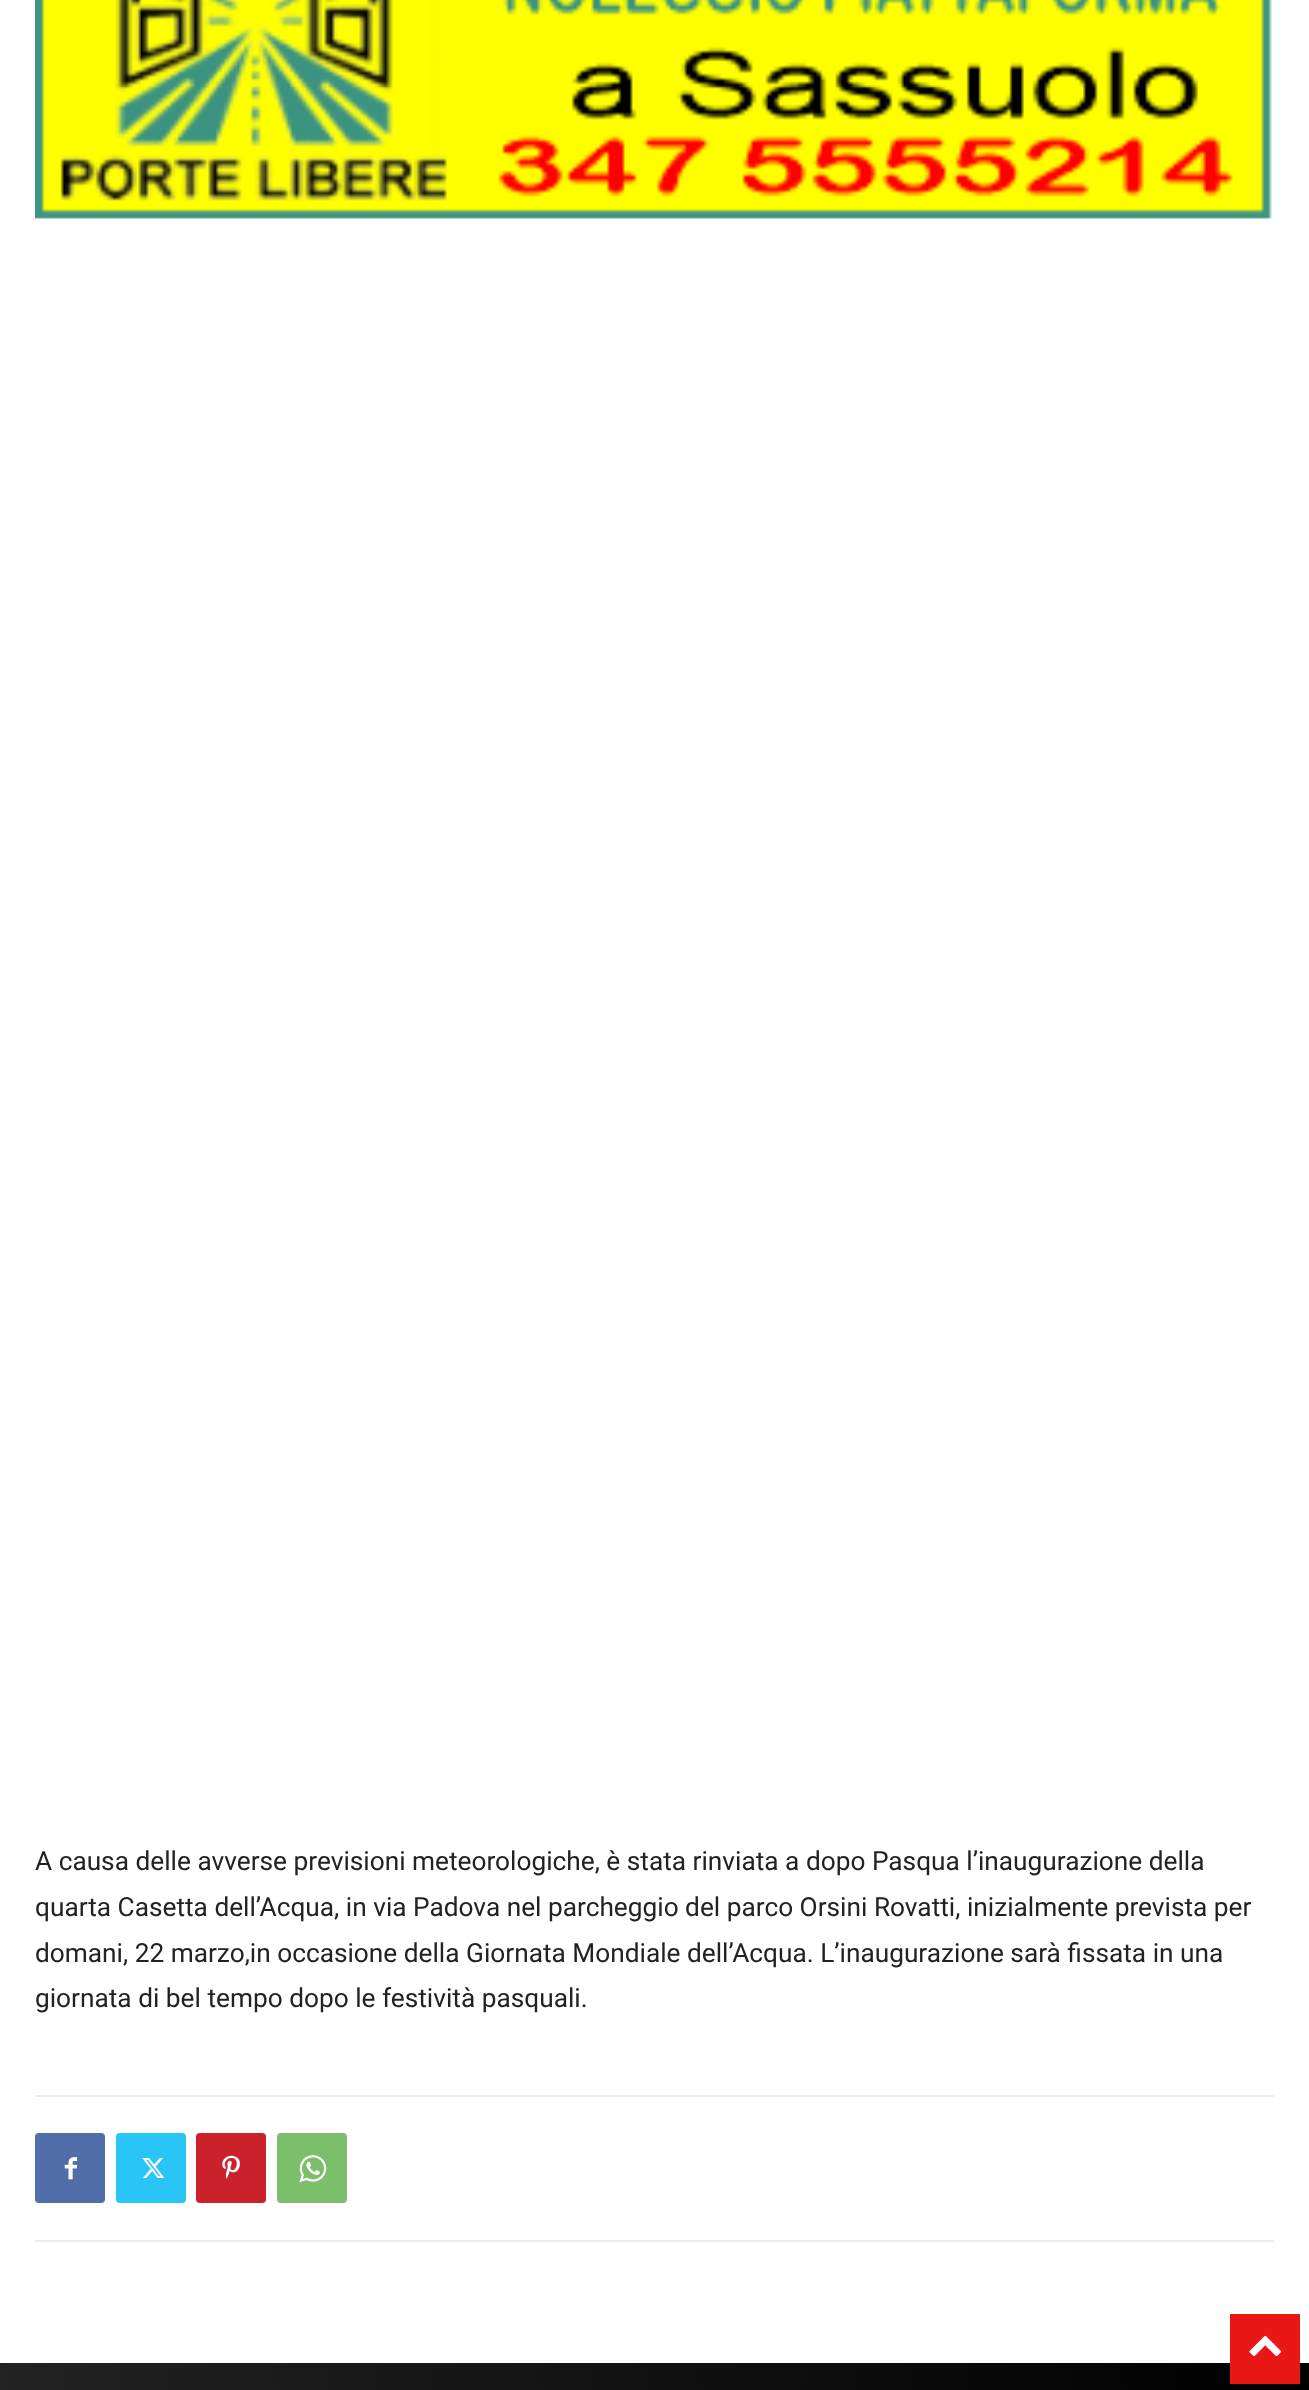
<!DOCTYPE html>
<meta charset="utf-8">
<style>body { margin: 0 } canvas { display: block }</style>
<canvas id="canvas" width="1309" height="2390"></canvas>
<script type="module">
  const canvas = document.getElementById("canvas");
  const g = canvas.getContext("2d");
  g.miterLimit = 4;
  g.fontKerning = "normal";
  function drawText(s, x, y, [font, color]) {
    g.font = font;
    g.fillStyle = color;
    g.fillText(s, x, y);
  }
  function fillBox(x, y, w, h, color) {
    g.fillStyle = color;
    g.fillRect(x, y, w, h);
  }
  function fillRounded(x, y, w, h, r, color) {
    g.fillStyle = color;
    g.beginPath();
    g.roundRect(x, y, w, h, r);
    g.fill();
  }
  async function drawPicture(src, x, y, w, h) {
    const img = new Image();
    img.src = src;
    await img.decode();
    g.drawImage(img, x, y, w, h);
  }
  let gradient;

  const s1 = ["26.25px Roboto", "#222222"];

  fillBox(0, 0, 1309, 2390, "#FFFFFF");
  await drawPicture("pic1.png", 35, 0, 1237, 219);
  drawText("A causa delle avverse previsioni meteorologiche, è stata rinviata a dopo Pasqua l’inaugurazione della", 35, 1870, s1);
  drawText("quarta Casetta dell’Acqua, in via Padova nel parcheggio del parco Orsini Rovatti, inizialmente prevista per", 35, 1916, s1);
  drawText("domani, 22 marzo,in occasione della Giornata Mondiale dell’Acqua. L’inaugurazione sarà fissata in una", 35, 1962, s1);
  drawText("giornata di bel tempo dopo le festività pasquali.", 35, 2007, s1);
  fillBox(35, 2095, 1239, 2, "#EDEDED");
  fillBox(35, 2240, 1239, 2, "#EDEDED");
  fillRounded(35, 2133, 70, 70, 4, "#516EAB");
  await drawPicture("pic2.png", 64, 2157, 13, 23);
  fillRounded(116, 2133, 70, 70, 4, "#29C5F6");
  await drawPicture("pic3.png", 142, 2158, 23, 20);
  fillRounded(196, 2133, 70, 70, 4, "#CA212A");
  await drawPicture("pic4.png", 222, 2155, 18, 24);
  fillRounded(277, 2133, 70, 70, 4, "#7BBF6A");
  await drawPicture("pic5.png", 299, 2155, 28, 28);
  gradient = g.createLinearGradient(1309, 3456, 0, 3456);
  gradient.addColorStop(0, "#000000");
  gradient.addColorStop(1, "#222222");
  g.fillStyle = gradient;
  g.fillRect(0, 2363, 1309, 27);
  fillBox(1230, 2314, 70, 70, "#EA1717");
  await drawPicture("pic6.png", 1249, 2335, 32, 21);
</script>
